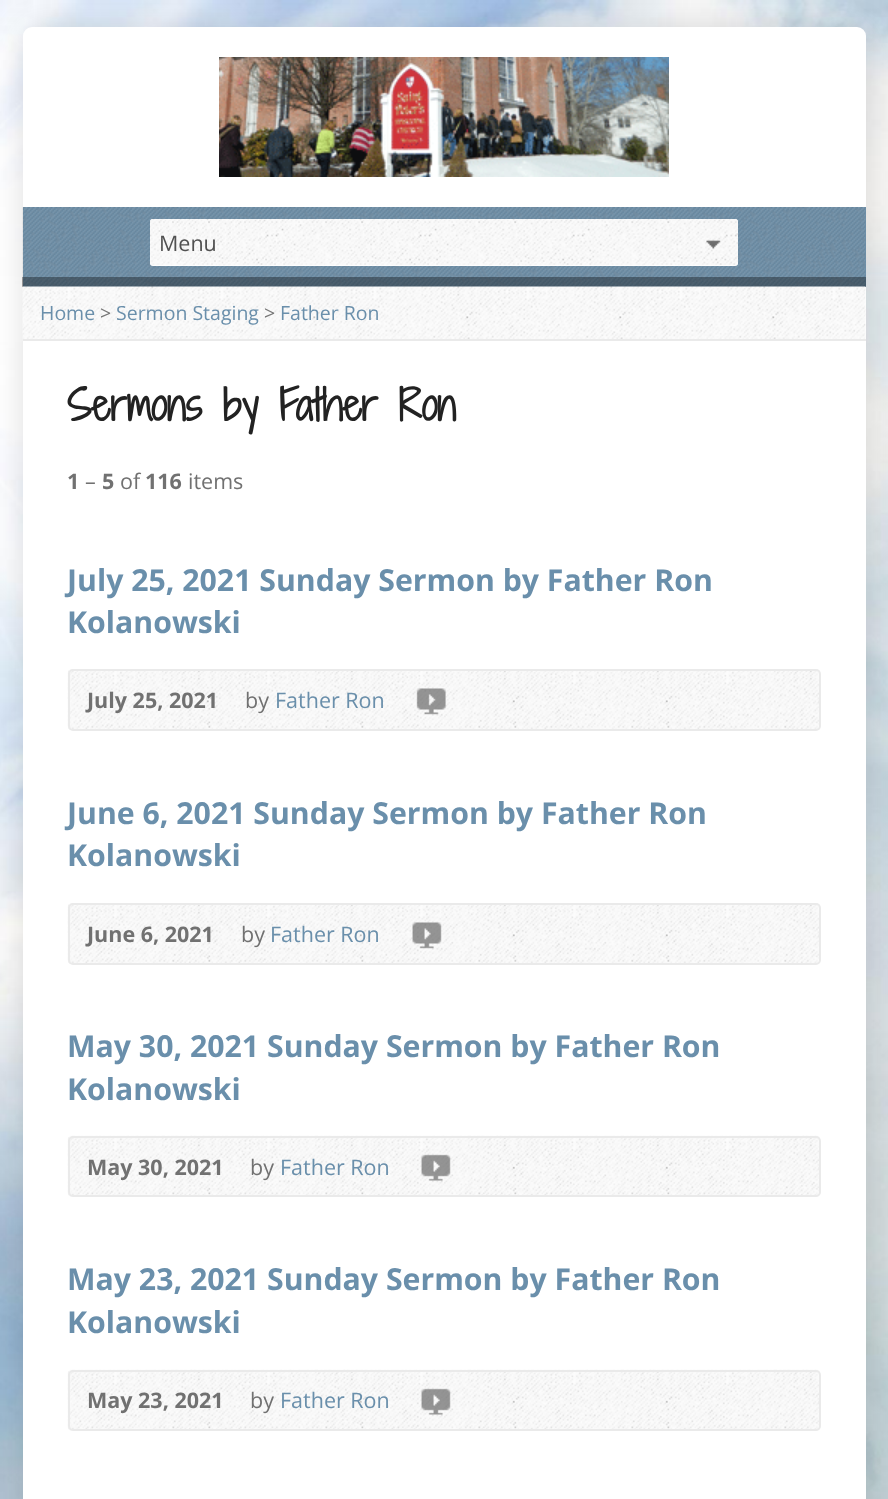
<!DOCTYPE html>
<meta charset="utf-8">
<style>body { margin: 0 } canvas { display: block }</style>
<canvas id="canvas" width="888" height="1499"></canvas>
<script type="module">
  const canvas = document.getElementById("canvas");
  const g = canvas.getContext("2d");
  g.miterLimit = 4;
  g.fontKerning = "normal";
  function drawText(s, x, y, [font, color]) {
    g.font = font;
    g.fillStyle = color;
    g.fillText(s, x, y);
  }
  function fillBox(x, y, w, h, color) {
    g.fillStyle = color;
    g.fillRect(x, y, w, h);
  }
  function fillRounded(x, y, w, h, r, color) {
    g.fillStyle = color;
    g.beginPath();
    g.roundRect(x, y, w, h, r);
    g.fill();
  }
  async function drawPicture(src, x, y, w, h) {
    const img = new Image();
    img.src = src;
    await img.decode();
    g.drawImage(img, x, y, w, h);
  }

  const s1 = ["21.5px Open Sans", "#515151"];
  const s2 = ["19.5px Open Sans", "#6A8FAB"];
  const s3 = ["19.5px Open Sans", "#777777"];
  const s4 = ["bold 41px Shadows Into Light Two", "#222222"];
  const s5 = ["bold 21.5px Open Sans", "#717171"];
  const s6 = ["21.5px Open Sans", "#717171"];
  const s7 = ["bold 30.25px Open Sans", "#6A8FAB"];
  const s8 = ["21.5px Open Sans", "#6A8FAB"];

  fillBox(0, 0, 888, 1499, "#FFFFFF");
  await drawPicture("pic1.png", 0, 0, 888, 1499);
  g.fillStyle = "rgba(0, 0, 0, 0.12)";
  g.filter = "blur(15px)";
  g.beginPath();
  g.roundRect(23, 27, 843, 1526, 9);
  g.fill();
  g.filter = "none";
  fillRounded(23, 27, 843, 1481, 9, "#FFFFFF");
  await drawPicture("pic2.png", 219, 57, 450, 120);
  fillBox(23, 207, 843, 80, "#6A8FAB");
  await drawPicture("pic3.png", 22, 207, 844, 80);
  fillRounded(150, 219, 588, 47, 3, "#FFFFFF");
  await drawPicture("pic4.png", 150, 219, 588, 47);
  drawText("Menu", 159, 251, s1);
  fillBox(22, 277, 844, 10, "rgba(0, 0, 0, 0.35)");
  await drawPicture("pic5.png", 22, 286, 844, 55);
  fillBox(23, 339, 843, 2, "#EAEAEA");
  drawText("Home", 40, 320, s2);
  drawText(">", 100, 320, s3);
  drawText("Sermon Staging", 116, 320, s2);
  drawText(">", 264, 320, s3);
  drawText("Father Ron", 280, 320, s2);
  drawText("Sermons by Father Ron", 67, 421, s4);
  drawText("1", 67, 489, s5);
  drawText("–", 85, 489, s6);
  drawText("5", 102, 489, s5);
  drawText("of", 120, 489, s6);
  drawText("116", 145, 489, s5);
  drawText("items", 188, 489, s6);
  drawText("July 25, 2021 Sunday Sermon by Father Ron", 67, 591, s7);
  drawText("Kolanowski", 67, 633, s7);
  await drawPicture("pic6.png", 67, 669, 754, 62);
  g.beginPath();
  g.roundRect(69, 670, 751, 60, 4);
  g.strokeStyle = "#EAEAEA";
  g.lineWidth = 2;
  g.stroke();
  drawText("July 25, 2021", 87, 708, s5);
  drawText("by", 245, 708, s6);
  drawText("Father Ron", 275, 708, s8);
  await drawPicture("pic7.png", 416, 688, 30, 27);
  drawText("June 6, 2021 Sunday Sermon by Father Ron", 67, 824, s7);
  drawText("Kolanowski", 67, 866, s7);
  await drawPicture("pic6.png", 67, 903, 754, 62);
  g.beginPath();
  g.roundRect(69, 904, 751, 60, 4);
  g.stroke();
  drawText("June 6, 2021", 87, 942, s5);
  drawText("by", 241, 942, s6);
  drawText("Father Ron", 270, 942, s8);
  await drawPicture("pic8.png", 412, 922, 30, 27);
  drawText("May 30, 2021 Sunday Sermon by Father Ron", 67, 1057, s7);
  drawText("Kolanowski", 67, 1100, s7);
  await drawPicture("pic9.png", 67, 1135, 754, 62);
  g.beginPath();
  g.roundRect(69, 1137, 751, 59, 4);
  g.stroke();
  drawText("May 30, 2021", 87, 1175, s5);
  drawText("by", 250, 1175, s6);
  drawText("Father Ron", 280, 1175, s8);
  await drawPicture("pic10.png", 421, 1154, 30, 27);
  drawText("May 23, 2021 Sunday Sermon by Father Ron", 67, 1290, s7);
  drawText("Kolanowski", 67, 1333, s7);
  await drawPicture("pic9.png", 67, 1369, 754, 62);
  g.beginPath();
  g.roundRect(69, 1371, 751, 59, 4);
  g.stroke();
  drawText("May 23, 2021", 87, 1408, s5);
  drawText("by", 250, 1408, s6);
  drawText("Father Ron", 280, 1408, s8);
  await drawPicture("pic10.png", 421, 1388, 30, 27);
</script>
